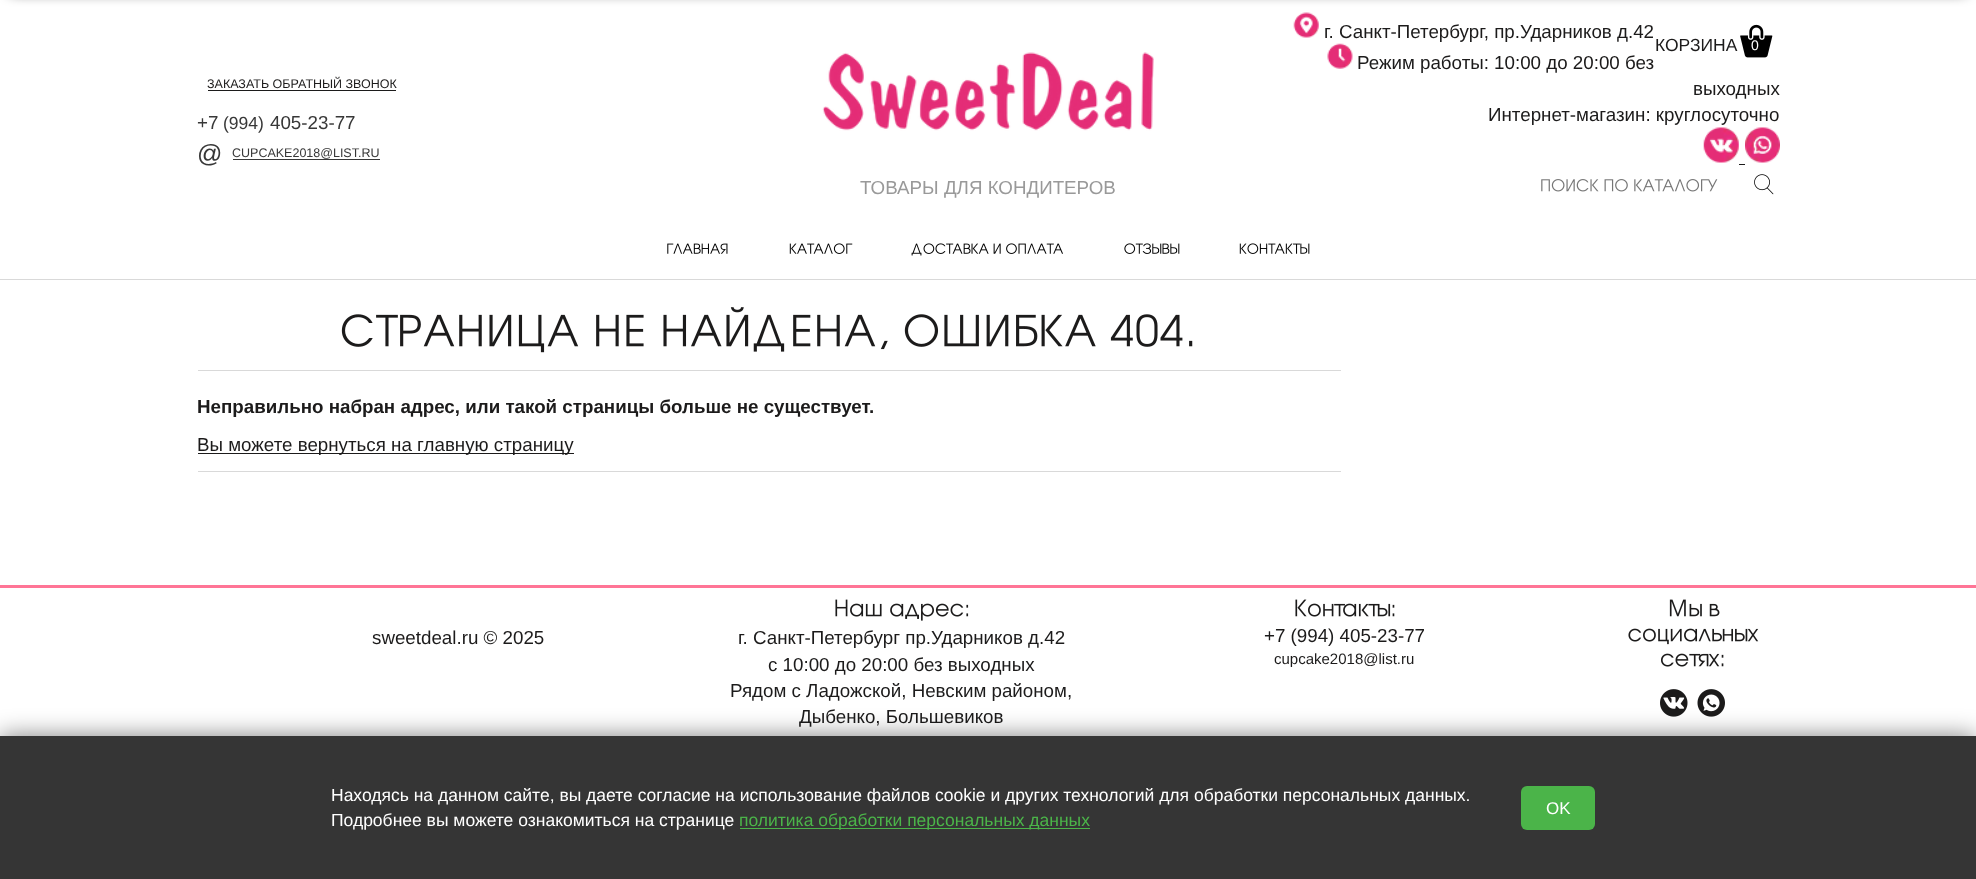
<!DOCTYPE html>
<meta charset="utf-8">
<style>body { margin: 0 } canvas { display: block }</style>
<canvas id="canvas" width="1976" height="879"></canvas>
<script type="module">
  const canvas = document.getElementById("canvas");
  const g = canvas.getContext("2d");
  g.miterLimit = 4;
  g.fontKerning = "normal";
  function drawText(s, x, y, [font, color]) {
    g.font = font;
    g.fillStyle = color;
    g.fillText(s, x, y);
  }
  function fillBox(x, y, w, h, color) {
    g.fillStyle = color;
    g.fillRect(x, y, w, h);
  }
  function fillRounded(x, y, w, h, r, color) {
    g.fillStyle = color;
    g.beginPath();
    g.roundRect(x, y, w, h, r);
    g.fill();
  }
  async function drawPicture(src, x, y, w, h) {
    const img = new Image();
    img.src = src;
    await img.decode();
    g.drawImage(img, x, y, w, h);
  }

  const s1 = ["12.5px Liberation Sans", "#1C1B1B"];
  const s2 = ["18.75px Liberation Sans", "#383838"];
  const s3 = ["17.5px Liberation Sans", "#383838"];
  const s4 = ["25px Liberation Sans", "#383838"];
  const s5 = ["12.5px Liberation Sans", "#383838"];
  const s6 = ["18.75px Liberation Sans", "#1C1B1B"];
  const s7 = ["17.5px Liberation Sans", "#1C1B1B"];
  const s8 = ["14px Liberation Sans", "#FFFFFF"];
  const s9 = ["18.75px Liberation Sans", "#999999"];
  const s10 = ["bold 18.75px Liberation Sans", "#1C1B1B"];
  const s11 = ["15px Liberation Sans", "#1C1B1B"];
  const s12 = ["17.5px Liberation Sans", "#FFFFFF"];
  const s13 = ["17.5px Liberation Sans", "#4BB449"];
  const s14 = ["17px Liberation Sans", "#FFFFFF"];

  fillBox(0, 0, 1976, 879, "#FFFFFF");
  await drawPicture("pic1.png", 1293, 12, 26, 26);
  g.fillStyle = "#000000";
  g.filter = "blur(7px)";
  g.beginPath();
  g.rect(10, -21, 1956, 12);
  g.fill();
  g.filter = "none";
  drawText("ЗАКАЗАТЬ ОБРАТНЫЙ ЗВОНОК", 207, 88, s1);
  fillBox(208, 90, 188, 1, "#1C1B1B");
  drawText("+7", 197, 129, s2);
  drawText("(994)", 223, 129, s3);
  drawText("405-23-77", 270, 129, s2);
  drawText("@", 197, 162, s4);
  drawText("CUPCAKE2018@LIST.RU", 232, 157, s5);
  fillBox(233, 159, 147, 1, "#383838");
  drawText("г. Санкт-Петербург, пр.Ударников д.42", 1324, 38, s6);
  await drawPicture("pic2.png", 1327, 43, 26, 26);
  drawText("Режим работы: 10:00 до 20:00 без", 1357, 69, s6);
  drawText("выходных", 1693, 95, s6);
  drawText("Интернет-магазин: круглосуточно", 1488, 121, s6);
  await drawPicture("pic3.png", 1703, 127, 36, 36);
  await drawPicture("pic4.png", 1745, 127, 35, 36);
  fillBox(1739, 164, 6, 1, "#1C1B1B");
  drawText("КОРЗИНА", 1655, 51, s7);
  await drawPicture("pic5.png", 1740, 24, 33, 34);
  drawText("0", 1751, 50, s8);
  await drawPicture("pic6.png", 1541, 179, 177, 13);
  await drawPicture("pic7.png", 1754, 174, 20, 21);
  await drawPicture("pic8.png", 822, 52, 332, 79);
  drawText("ТОВАРЫ ДЛЯ КОНДИТЕРОВ", 860, 194, s9);
  await drawPicture("pic9.png", 667, 243, 61, 11);
  await drawPicture("pic10.png", 789, 243, 64, 11);
  await drawPicture("pic11.png", 911, 243, 152, 13);
  await drawPicture("pic12.png", 1124, 243, 56, 11);
  await drawPicture("pic13.png", 1239, 243, 71, 11);
  fillBox(0, 279, 1976, 1, "#D9D9D9");
  fillBox(198, 370, 1143, 1, "#D9D9D9");
  await drawPicture("pic14.png", 341, 307, 852, 46);
  fillBox(198, 471, 1143, 1, "#D9D9D9");
  drawText("Неправильно набран адрес, или такой страницы больше не существует.", 197, 413, s10);
  fillBox(198, 453, 376, 1, "#1C1B1B");
  drawText("Вы можете вернуться на главную страницу", 197, 451, s6);
  fillBox(0, 585, 1976, 3, "#FF7596");
  drawText("sweetdeal.ru © 2025", 372, 644, s6);
  await drawPicture("pic15.png", 835, 599, 134, 22);
  drawText("г. Санкт-Петербург пр.Ударников д.42", 738, 644, s6);
  drawText("с 10:00 до 20:00 без выходных", 768, 671, s6);
  drawText("Рядом с Ладожской, Невским районом,", 730, 697, s6);
  drawText("Дыбенко, Большевиков", 799, 723, s6);
  await drawPicture("pic16.png", 1295, 599, 100, 18);
  drawText("+7 (994) 405-23-77", 1264, 642, s6);
  drawText("cupcake2018@list.ru", 1274, 664, s11);
  await drawPicture("pic17.png", 1669, 599, 51, 18);
  await drawPicture("pic18.png", 1628, 628, 131, 17);
  await drawPicture("pic19.png", 1661, 653, 63, 14);
  await drawPicture("pic20.png", 1660, 689, 28, 28);
  await drawPicture("pic21.png", 1697, 689, 28, 28);
  g.fillStyle = "rgba(0, 0, 0, 0.5)";
  g.filter = "blur(12.5px)";
  g.beginPath();
  g.rect(0, 736, 1976, 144);
  g.fill();
  g.filter = "none";
  fillBox(0, 736, 1976, 143, "#353535");
  drawText("Находясь на данном сайте, вы даете согласие на использование файлов cookie и других технологий для обработки персональных данных.", 331, 801, s12);
  drawText("Подробнее вы можете ознакомиться на странице", 331, 826, s12);
  fillBox(740, 828, 350, 1, "#4BB449");
  drawText("политика обработки персональных данных", 739, 826, s13);
  fillRounded(1521, 786, 74, 44, 6, "#4BB449");
  drawText("OK", 1546, 814, s14);
</script>
